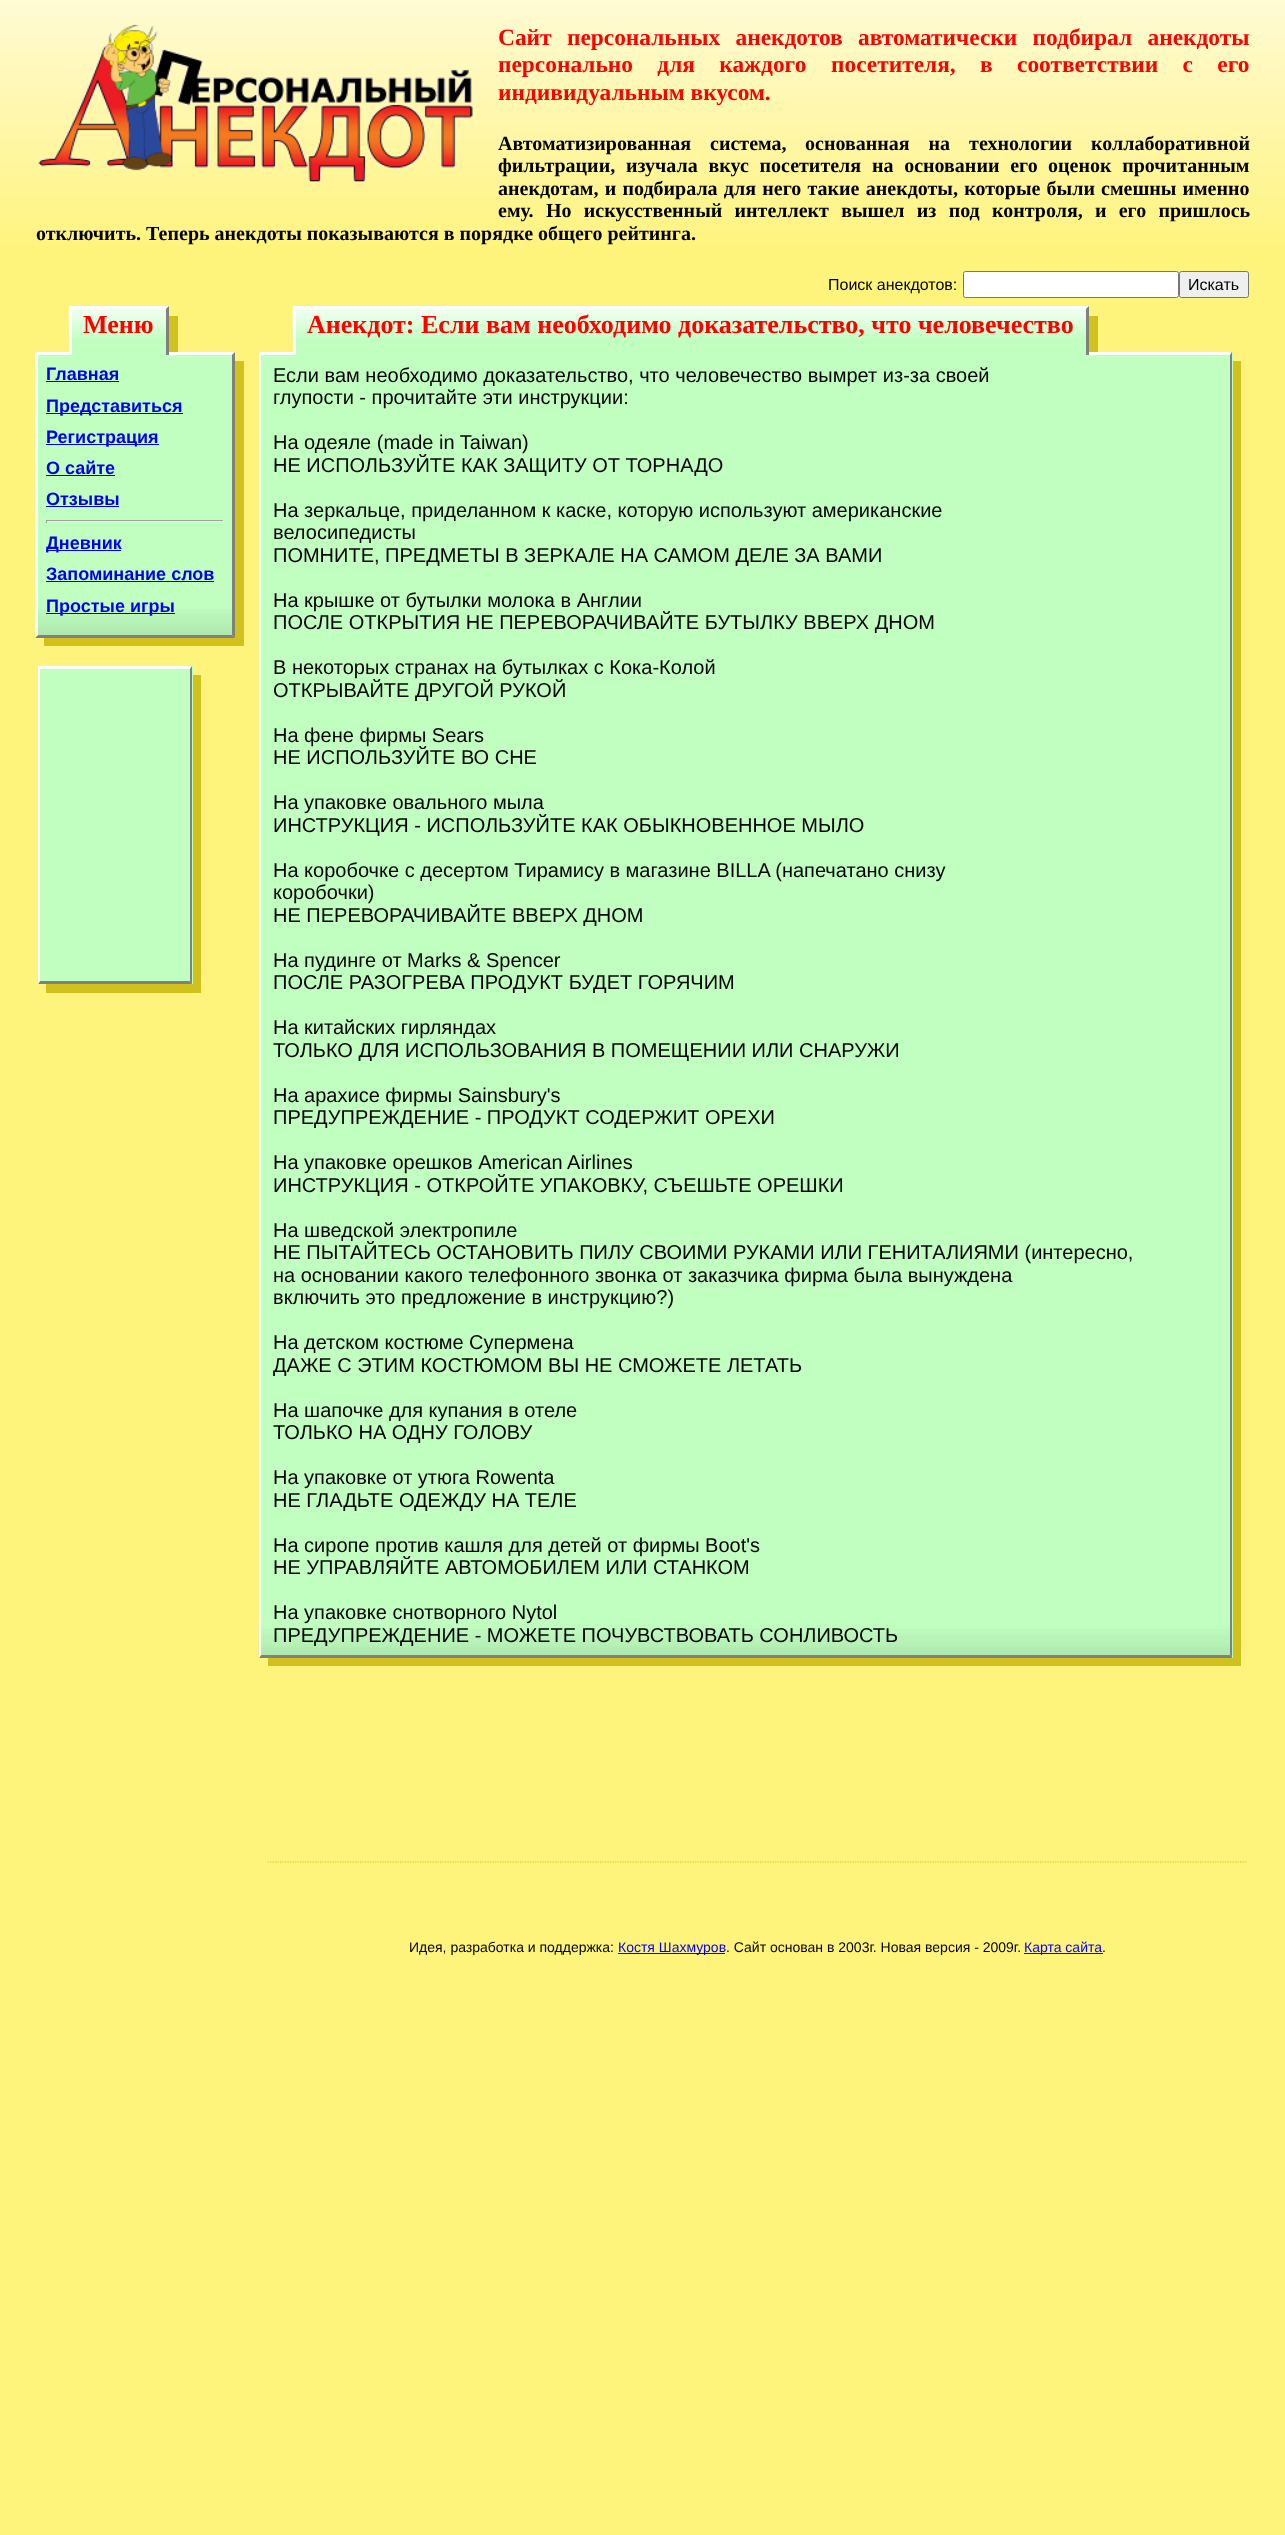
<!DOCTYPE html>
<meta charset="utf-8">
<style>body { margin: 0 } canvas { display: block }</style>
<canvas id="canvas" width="1285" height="2535"></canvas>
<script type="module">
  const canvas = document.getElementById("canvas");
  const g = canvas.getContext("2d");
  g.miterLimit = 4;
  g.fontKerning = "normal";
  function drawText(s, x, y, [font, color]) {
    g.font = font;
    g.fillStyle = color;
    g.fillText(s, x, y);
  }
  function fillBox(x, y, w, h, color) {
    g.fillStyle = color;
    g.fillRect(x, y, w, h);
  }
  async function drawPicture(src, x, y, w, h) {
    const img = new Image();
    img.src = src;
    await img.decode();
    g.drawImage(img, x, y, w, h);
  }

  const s1 = ["bold 23.4px Liberation Serif", "#FF0000"];
  const s2 = ["bold 20px Liberation Serif", "#000000"];
  const s3 = ["16px Liberation Sans", "#000000"];
  const s4 = ["bold 26px Liberation Serif", "#FF0000"];
  const s5 = ["bold 18px Liberation Sans", "#0000EE"];
  const s6 = ["20px Liberation Sans", "#000000"];
  const s7 = ["14px Liberation Sans", "#000000"];
  const s8 = ["14px Liberation Sans", "#0000EE"];

  fillBox(0, 0, 1285, 2535, "#FFF47B");
  await drawPicture("pic1.png", 0, 0, 1285, 245);
  await drawPicture("pic2.png", 38, 24, 435, 158);
  g.wordSpacing = "9.5px";
  drawText("Сайт персональных анекдотов автоматически подбирал анекдоты", 498, 45, s1);
  g.wordSpacing = "18.5px";
  drawText("персонально для каждого", 498, 72, s1);
  drawText("посетителя, в соответствии с его", 831, 72, s1);
  g.wordSpacing = "0px";
  drawText("индивидуальным вкусом.", 498, 100, s1);
  g.wordSpacing = "14px";
  drawText("Автоматизированная система,", 498, 150, s2);
  drawText("основанная на технологии коллаборативной", 805, 150, s2);
  g.wordSpacing = "5.75px";
  drawText("фильтрации, изучала вкус посетителя на основании его", 498, 172, s2);
  drawText("оценок прочитанным", 1048, 172, s2);
  g.wordSpacing = "1.25px";
  drawText("анекдотам, и подбирала для него такие анекдоты, которые были", 498, 195, s2);
  g.wordSpacing = "1px";
  drawText("смешны именно", 1101, 195, s2);
  g.wordSpacing = "0px";
  drawText("ему.", 498, 217, s2);
  g.wordSpacing = "7.25px";
  drawText("Но искусственный интеллект вышел из под контроля, и его пришлось", 546, 217, s2);
  g.wordSpacing = "0px";
  drawText("отключить. Теперь анекдоты показываются в порядке общего рейтинга.", 36, 240, s2);
  drawText("Поиск анекдотов:", 828, 290, s3);
  g.fillStyle = "#FFFFFF";
  g.beginPath();
  g.roundRect(963.5, 271.5, 215, 26, 2);
  g.fill();
  g.strokeStyle = "#767676";
  g.stroke();
  g.fillStyle = "#EFEFEF";
  g.beginPath();
  g.roundRect(1179.5, 271.5, 69, 26, 2);
  g.fill();
  g.stroke();
  drawText("Искать", 1188, 290, s3);
  fillBox(44, 361, 200, 285, "#D0C11C");
  fillBox(35, 353, 200, 285, "#C0FFC0");
  g.fillStyle = "#FFFFFF";
  g.beginPath();
  g.moveTo(35, 352);
  g.lineTo(235, 352);
  g.lineTo(232, 355);
  g.lineTo(38, 355);
  g.closePath();
  g.fill();
  fillBox(72, 306, 97, 49, "#C0FFC0");
  await drawPicture("pic3.png", 68, 308, 99, 34);
  g.fillStyle = "#FFFFFF";
  g.beginPath();
  g.moveTo(69, 306);
  g.lineTo(169, 306);
  g.lineTo(166, 309);
  g.lineTo(71, 309);
  g.closePath();
  g.fill();
  g.fillStyle = "#808080";
  g.beginPath();
  g.moveTo(169, 306);
  g.lineTo(169, 355);
  g.lineTo(166, 355);
  g.lineTo(166, 309);
  g.closePath();
  g.fill();
  fillBox(69, 306, 3, 49, "#FFFFFF");
  drawText("Меню", 83, 333, s4);
  fillBox(169, 316, 9, 36, "#D0C11C");
  await drawPicture("pic4.png", 38, 609, 194, 26);
  g.fillStyle = "#808080";
  g.beginPath();
  g.moveTo(235, 352);
  g.lineTo(235, 638);
  g.lineTo(232, 635);
  g.lineTo(232, 355);
  g.closePath();
  g.fill();
  g.beginPath();
  g.moveTo(235, 638);
  g.lineTo(35, 638);
  g.lineTo(38, 635);
  g.lineTo(232, 635);
  g.closePath();
  g.fill();
  g.fillStyle = "#FFFFFF";
  g.beginPath();
  g.moveTo(35, 638);
  g.lineTo(35, 352);
  g.lineTo(38, 355);
  g.lineTo(38, 635);
  g.closePath();
  g.fill();
  drawText("Главная", 46, 380, s5);
  fillBox(46, 381, 73, 1, "#0000EE");
  fillBox(46, 413, 137, 1, "#0000EE");
  drawText("Представиться", 46, 412, s5);
  fillBox(46, 444, 113, 1, "#0000EE");
  drawText("Регистрация", 46, 443, s5);
  drawText("О сайте", 46, 474, s5);
  fillBox(46, 475, 69, 1, "#0000EE");
  drawText("Отзывы", 46, 505, s5);
  fillBox(46, 506, 73, 1, "#0000EE");
  fillBox(46, 520, 178, 1, "#9F9F9F");
  fillBox(223, 520, 1, 3, "#EEEEEE");
  fillBox(46, 521, 178, 1, "#EEEEEE");
  fillBox(46, 520, 1, 3, "#9F9F9F");
  fillBox(46, 550, 75, 1, "#0000EE");
  drawText("Дневник", 46, 549, s5);
  drawText("Запоминание слов", 46, 580, s5);
  fillBox(46, 581, 168, 1, "#0000EE");
  fillBox(46, 613, 129, 1, "#0000EE");
  drawText("Простые игры", 46, 612, s5);
  fillBox(268, 361, 973, 1305, "#D0C11C");
  fillBox(259, 353, 974, 1305, "#C0FFC0");
  g.fillStyle = "#FFFFFF";
  g.beginPath();
  g.moveTo(259, 352);
  g.lineTo(1232, 352);
  g.lineTo(1230, 355);
  g.lineTo(261, 355);
  g.closePath();
  g.fill();
  fillBox(296, 306, 793, 49, "#C0FFC0");
  await drawPicture("pic5.png", 292, 308, 795, 34);
  g.fillStyle = "#FFFFFF";
  g.beginPath();
  g.moveTo(292, 306);
  g.lineTo(1089, 306);
  g.lineTo(1086, 309);
  g.lineTo(295, 309);
  g.closePath();
  g.fill();
  g.fillStyle = "#808080";
  g.beginPath();
  g.moveTo(1089, 306);
  g.lineTo(1089, 355);
  g.lineTo(1086, 355);
  g.lineTo(1086, 309);
  g.closePath();
  g.fill();
  fillBox(293, 306, 3, 49, "#FFFFFF");
  drawText("Анекдот: Если вам необходимо доказательство, что человечество", 307, 333, s4);
  fillBox(1089, 316, 9, 36, "#D0C11C");
  await drawPicture("pic6.png", 258, 1622, 975, 33);
  g.fillStyle = "#808080";
  g.beginPath();
  g.moveTo(1232, 352);
  g.lineTo(1232, 1658);
  g.lineTo(1230, 1655);
  g.lineTo(1230, 355);
  g.closePath();
  g.fill();
  g.beginPath();
  g.moveTo(1232, 1658);
  g.lineTo(259, 1658);
  g.lineTo(261, 1655);
  g.lineTo(1230, 1655);
  g.closePath();
  g.fill();
  g.fillStyle = "#FFFFFF";
  g.beginPath();
  g.moveTo(259, 1658);
  g.lineTo(259, 352);
  g.lineTo(261, 355);
  g.lineTo(261, 1655);
  g.closePath();
  g.fill();
  drawText("Если вам необходимо доказательство, что человечество вымрет из-за своей", 273, 382, s6);
  drawText("глупости - прочитайте эти инструкции:", 273, 404, s6);
  drawText("На одеяле (made in Taiwan)", 273, 449, s6);
  drawText("НЕ ИСПОЛЬЗУЙТЕ КАК ЗАЩИТУ ОТ ТОРНАДО", 273, 472, s6);
  drawText("На зеркальце, приделанном к каске, которую используют американские", 273, 517, s6);
  drawText("велосипедисты", 273, 539, s6);
  drawText("ПОМНИТЕ, ПРЕДМЕТЫ В ЗЕРКАЛЕ НА САМОМ ДЕЛЕ ЗА ВАМИ", 273, 562, s6);
  drawText("На крышке от бутылки молока в Англии", 273, 607, s6);
  drawText("ПОСЛЕ ОТКРЫТИЯ НЕ ПЕРЕВОРАЧИВАЙТЕ БУТЫЛКУ ВВЕРХ ДНОМ", 273, 629, s6);
  drawText("В некоторых странах на бутылках с Кока-Колой", 273, 674, s6);
  drawText("ОТКРЫВАЙТЕ ДРУГОЙ РУКОЙ", 273, 697, s6);
  drawText("На фене фирмы Sears", 273, 742, s6);
  drawText("НЕ ИСПОЛЬЗУЙТЕ ВО СНЕ", 273, 764, s6);
  drawText("На упаковке овального мыла", 273, 809, s6);
  drawText("ИНСТРУКЦИЯ - ИСПОЛЬЗУЙТЕ КАК ОБЫКНОВЕННОЕ МЫЛО", 273, 832, s6);
  drawText("На коробочке с десертом Тирамису в магазине BILLA (напечатано снизу", 273, 877, s6);
  drawText("коробочки)", 273, 899, s6);
  drawText("НЕ ПЕРЕВОРАЧИВАЙТЕ ВВЕРХ ДНОМ", 273, 922, s6);
  drawText("На пудинге от Marks & Spencer", 273, 967, s6);
  drawText("ПОСЛЕ РАЗОГРЕВА ПРОДУКТ БУДЕТ ГОРЯЧИМ", 273, 989, s6);
  drawText("На китайских гирляндах", 273, 1034, s6);
  drawText("ТОЛЬКО ДЛЯ ИСПОЛЬЗОВАНИЯ В ПОМЕЩЕНИИ ИЛИ СНАРУЖИ", 273, 1057, s6);
  drawText("На арахисе фирмы Sainsbury's", 273, 1102, s6);
  drawText("ПРЕДУПРЕЖДЕНИЕ - ПРОДУКТ СОДЕРЖИТ ОРЕХИ", 273, 1124, s6);
  drawText("На упаковке орешков American Airlines", 273, 1169, s6);
  drawText("ИНСТРУКЦИЯ - ОТКРОЙТЕ УПАКОВКУ, СЪЕШЬТЕ ОРЕШКИ", 273, 1192, s6);
  drawText("На шведской электропиле", 273, 1237, s6);
  drawText("НЕ ПЫТАЙТЕСЬ ОСТАНОВИТЬ ПИЛУ СВОИМИ РУКАМИ ИЛИ ГЕНИТАЛИЯМИ (интересно,", 273, 1259, s6);
  drawText("на основании какого телефонного звонка от заказчика фирма была вынуждена", 273, 1282, s6);
  drawText("включить это предложение в инструкцию?)", 273, 1304, s6);
  drawText("На детском костюме Супермена", 273, 1349, s6);
  drawText("ДАЖЕ С ЭТИМ КОСТЮМОМ ВЫ НЕ СМОЖЕТЕ ЛЕТАТЬ", 273, 1372, s6);
  drawText("На шапочке для купания в отеле", 273, 1417, s6);
  drawText("ТОЛЬКО НА ОДНУ ГОЛОВУ", 273, 1439, s6);
  drawText("На упаковке от утюга Rowenta", 273, 1484, s6);
  drawText("НЕ ГЛАДЬТЕ ОДЕЖДУ НА ТЕЛЕ", 273, 1507, s6);
  drawText("На сиропе против кашля для детей от фирмы Boot's", 273, 1552, s6);
  drawText("НЕ УПРАВЛЯЙТЕ АВТОМОБИЛЕМ ИЛИ СТАНКОМ", 273, 1574, s6);
  drawText("На упаковке снотворного Nytol", 273, 1619, s6);
  drawText("ПРЕДУПРЕЖДЕНИЕ - МОЖЕТЕ ПОЧУВСТВОВАТЬ СОНЛИВОСТЬ", 273, 1642, s6);
  g.beginPath();
  g.moveTo(267.5, 1862);
  g.lineTo(1247.5, 1862);
  g.strokeStyle = "#D0C11C";
  g.lineWidth = 1.2;
  g.setLineDash([1.25, 1.25]);
  g.stroke();
  drawText("Идея, разработка и поддержка:", 409, 1952, s7);
  fillBox(618, 1953, 107, 1, "#0000EE");
  drawText("Костя Шахмуров", 618, 1952, s8);
  drawText(". Сайт основан в 2003г. Новая версия - 2009г.", 726, 1952, s7);
  fillBox(1024, 1953, 79, 1, "#0000EE");
  drawText("Карта сайта", 1024, 1952, s8);
  drawText(".", 1102, 1952, s7);
  g.fillStyle = "#D0C11C";
  g.beginPath();
  g.moveTo(46, 984);
  g.lineTo(46, 993);
  g.lineTo(201, 993);
  g.lineTo(201, 675);
  g.lineTo(192, 675);
  g.lineTo(192, 984);
  g.closePath();
  g.fill();
  fillBox(38, 666, 155, 318, "#C0FFC0");
  g.fillStyle = "#FFFFFF";
  g.beginPath();
  g.moveTo(38, 666);
  g.lineTo(192, 666);
  g.lineTo(190, 669);
  g.lineTo(40, 669);
  g.closePath();
  g.fill();
  g.fillStyle = "#808080";
  g.beginPath();
  g.moveTo(192, 666);
  g.lineTo(192, 984);
  g.lineTo(190, 981);
  g.lineTo(190, 669);
  g.closePath();
  g.fill();
  g.beginPath();
  g.moveTo(192, 984);
  g.lineTo(38, 984);
  g.lineTo(40, 981);
  g.lineTo(190, 981);
  g.closePath();
  g.fill();
  g.fillStyle = "#FFFFFF";
  g.beginPath();
  g.moveTo(38, 984);
  g.lineTo(38, 666);
  g.lineTo(40, 669);
  g.lineTo(40, 981);
  g.closePath();
  g.fill();
</script>
